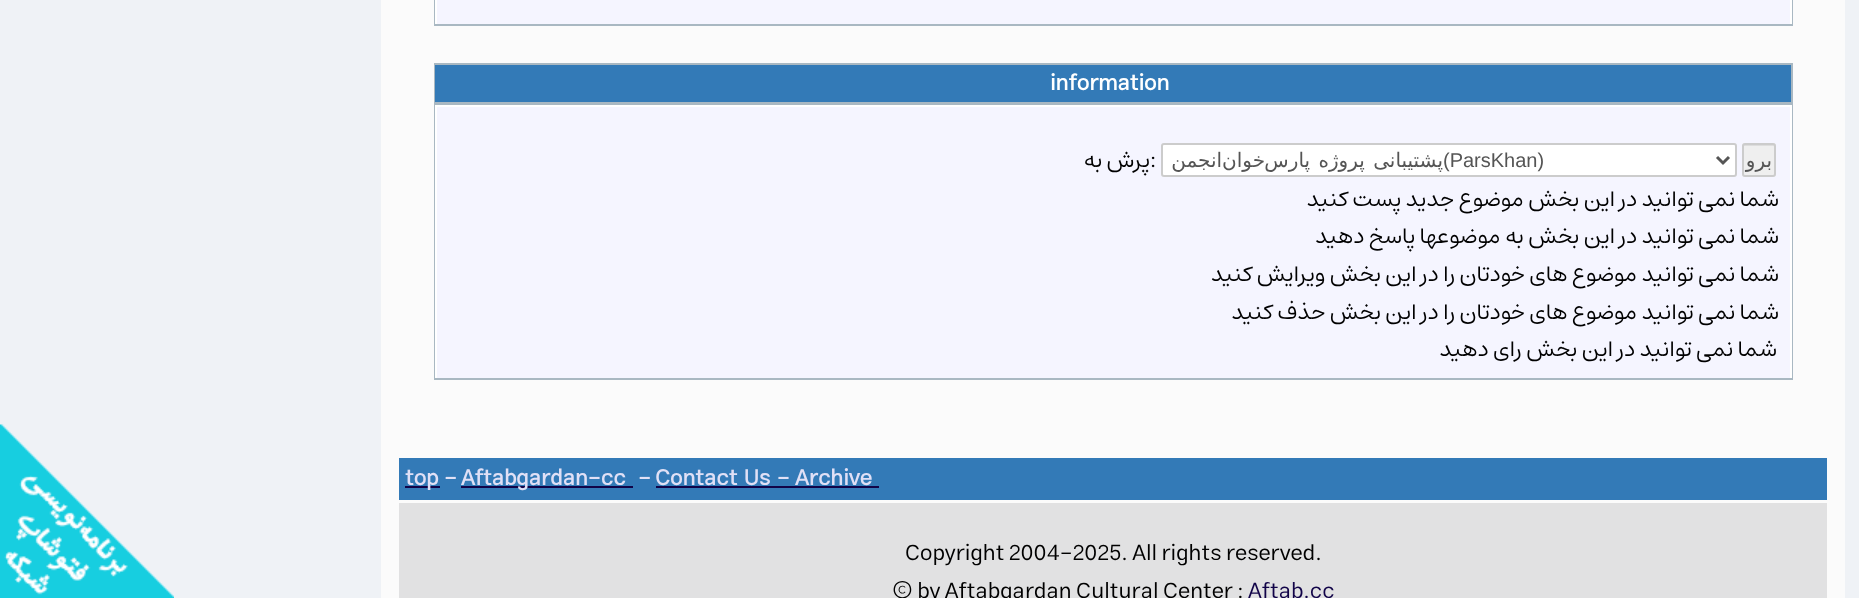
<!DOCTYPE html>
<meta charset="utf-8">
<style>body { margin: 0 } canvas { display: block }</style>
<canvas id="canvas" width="1859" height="598"></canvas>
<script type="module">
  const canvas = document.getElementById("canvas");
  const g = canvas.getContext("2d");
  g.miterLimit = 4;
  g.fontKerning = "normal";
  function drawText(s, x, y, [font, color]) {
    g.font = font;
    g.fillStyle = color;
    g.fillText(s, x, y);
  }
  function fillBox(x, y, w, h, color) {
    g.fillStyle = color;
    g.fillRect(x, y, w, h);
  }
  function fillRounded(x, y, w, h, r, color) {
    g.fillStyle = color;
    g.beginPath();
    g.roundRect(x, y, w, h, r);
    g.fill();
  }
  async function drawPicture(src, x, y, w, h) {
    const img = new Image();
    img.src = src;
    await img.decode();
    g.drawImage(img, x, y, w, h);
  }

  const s1 = ["bold 22.5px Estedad", "#FFFFFF"];
  const s2 = ["20px DejaVu Sans", "#555555"];
  const s3 = ["20px Liberation Sans", "#555555"];
  const s4 = ["22.5px Estedad", "#000000"];
  const s5 = ["bold 22.5px Estedad", "#E0E0F6"];
  const s6 = ["22.5px Estedad", "#110348"];

  fillBox(0, 0, 1859, 598, "#EFF2F6");
  fillBox(381, 0, 1464, 598, "#FBFBFB");
  fillBox(434, 0, 1359, 26, "#A9B8C2");
  fillBox(437, 0, 1353, 24, "#F5F5FF");
  fillBox(1790, 0, 2, 24, "#FFFFFF");
  fillBox(435, 0, 2, 24, "#FFFFFF");
  fillBox(434, 63, 1359, 317, "#A9B8C2");
  fillBox(435, 65, 1356, 37, "#337AB7");
  drawText("information", 1050, 90, s1);
  fillBox(437, 107, 1353, 271, "#F5F5FF");
  fillBox(435, 105, 1356, 2, "#FFFFFF");
  fillBox(1790, 105, 2, 273, "#FFFFFF");
  fillBox(435, 105, 2, 273, "#FFFFFF");
  fillRounded(1742, 143, 34, 34, 3, "#EFEFEF");
  g.fillStyle = "#DDDDDD";
  g.beginPath();
  g.moveTo(1744, 146);
  g.lineTo(1773, 146);
  g.bezierCurveTo(1774, 146, 1774, 146, 1774, 147);
  g.lineTo(1774, 176);
  g.bezierCurveTo(1774.5, 175.5, 1775, 175, 1775, 174.5);
  g.lineTo(1775, 145.5);
  g.bezierCurveTo(1775, 144.5, 1774.5, 144, 1773.5, 144);
  g.lineTo(1744.5, 144);
  g.bezierCurveTo(1743.5, 144, 1743, 144.5, 1743, 145.5);
  g.lineTo(1743, 147);
  g.bezierCurveTo(1743, 146, 1744, 146, 1744, 146);
  g.closePath();
  g.fill();
  g.beginPath();
  g.roundRect(1743, 144, 32, 32, 2);
  g.strokeStyle = "#CCCCCC";
  g.lineWidth = 2;
  g.stroke();
  g.direction = "rtl";
  drawText("برو", 1772, 167, s2);
  g.fillStyle = "#FFFFFF";
  g.beginPath();
  g.roundRect(1162, 144, 574, 32, 2);
  g.fill();
  g.stroke();
  g.beginPath();
  g.moveTo(1717, 157);
  g.lineTo(1723, 163);
  g.lineTo(1729, 157);
  g.strokeStyle = "#555555";
  g.lineWidth = 3;
  g.stroke();
  g.direction = "ltr";
  drawText("(ParsKhan)", 1443, 167, s3);
  g.wordSpacing = "2px";
  g.direction = "rtl";
  drawText("پشتیبانی پروژه پارس", 1443, 167, s2);
  g.wordSpacing = "0px";
  drawText("خوان", 1265, 167, s2);
  drawText("انجمن", 1222, 167, s2);
  g.direction = "ltr";
  drawText(":", 1150, 167, s4);
  g.direction = "rtl";
  drawText("پرش به", 1150, 167, s4);
  drawText("شما نمی توانید در این بخش موضوع جدید پست کنید", 1779, 206, s4);
  drawText("شما نمی توانید در این بخش به موضوعها پاسخ دهید", 1779, 243, s4);
  drawText("شما نمی توانید موضوع های خودتان را در این بخش ویرایش کنید", 1779, 281, s4);
  drawText("شما نمی توانید موضوع های خودتان را در این بخش حذف کنید", 1779, 319, s4);
  drawText("شما نمی توانید در این بخش رای دهید", 1777, 356, s4);
  fillBox(399, 458, 1428, 42, "#337AB7");
  g.direction = "ltr";
  drawText("Archive", 795, 485, s5);
  g.wordSpacing = "2px";
  drawText("Contact Us -", 655, 485, s5);
  fillBox(656, 486, 223, 2, "#110348");
  g.wordSpacing = "0px";
  drawText("-", 638, 485, s5);
  fillBox(461, 486, 172, 2, "#110348");
  drawText("Aftabgardan-cc", 461, 485, s5);
  drawText("-", 444, 485, s5);
  fillBox(405, 486, 35, 2, "#110348");
  drawText("top", 405, 485, s5);
  fillBox(399, 503, 1428, 95, "#E1E1E2");
  drawText("Copyright 2004-2025. All rights reserved.", 905, 560, s4);
  drawText("Aftab.cc", 1248, 598, s6);
  drawText("© by Aftabgardan Cultural Center :", 892, 598, s4);
  await drawPicture("pic1.png", 0, 424, 174, 174);
</script>
